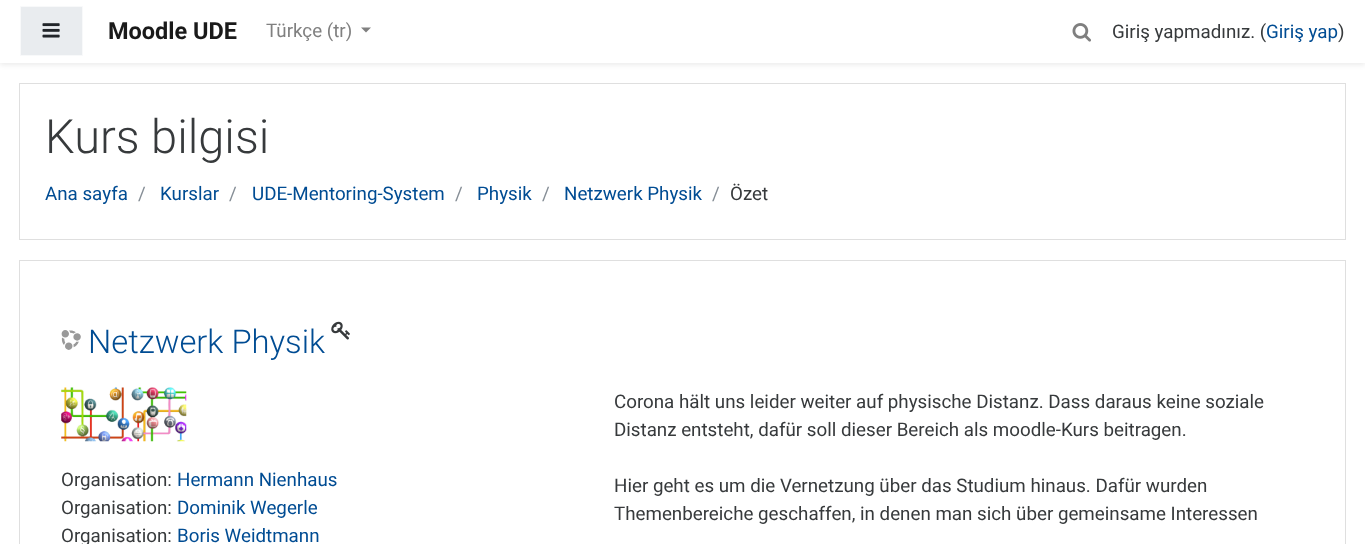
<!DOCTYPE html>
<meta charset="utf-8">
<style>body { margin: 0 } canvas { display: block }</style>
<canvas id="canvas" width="1365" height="544"></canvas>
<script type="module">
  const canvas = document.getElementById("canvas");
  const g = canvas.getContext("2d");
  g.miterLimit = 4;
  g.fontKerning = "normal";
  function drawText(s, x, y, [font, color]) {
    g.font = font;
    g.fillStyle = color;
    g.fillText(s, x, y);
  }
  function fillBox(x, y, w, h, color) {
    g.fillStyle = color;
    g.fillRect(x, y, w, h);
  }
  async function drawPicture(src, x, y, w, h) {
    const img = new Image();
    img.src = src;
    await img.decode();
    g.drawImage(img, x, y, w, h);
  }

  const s1 = ["bold 23.5px Roboto", "#1A1A1A"];
  const s2 = ["18.75px Roboto", "#808080"];
  const s3 = ["18.75px Roboto", "#373A3C"];
  const s4 = ["18.75px Roboto", "#004C93"];
  const s5 = ["300 47px Roboto", "#373A3C"];
  const s6 = ["18.75px Roboto", "#868E96"];
  const s7 = ["300 32.75px Roboto", "#004C93"];

  fillBox(0, 0, 1365, 544, "#FFFFFF");
  g.fillStyle = "rgba(0, 0, 0, 0.08)";
  g.filter = "blur(2.5px)";
  g.beginPath();
  g.rect(0, 3, 1365, 62);
  g.fill();
  g.filter = "none";
  fillBox(0, 0, 1365, 63, "#FFFFFF");
  g.fillStyle = "#E9ECEF";
  g.beginPath();
  g.rect(20.5, 6.5, 62, 49);
  g.fill();
  g.strokeStyle = "#F8F9FA";
  g.stroke();
  await drawPicture("pic1.png", 42, 23, 18, 15);
  drawText("Moodle UDE", 108, 39, s1);
  drawText("Türkçe (tr)", 266, 37, s2);
  g.beginPath();
  g.moveTo(361, 27.5);
  g.lineTo(371, 27.5);
  g.lineTo(366, 32.5);
  g.closePath();
  g.fill();
  await drawPicture("pic2.png", 1072, 23, 19, 19);
  drawText("Giriş yapmadınız. (", 1112, 38, s3);
  drawText("Giriş yap", 1266, 38, s4);
  drawText(")", 1338, 38, s3);
  g.strokeStyle = "#DFDFDF";
  g.strokeRect(19.5, 83.5, 1326, 156);
  drawText("Kurs bilgisi", 45, 153, s5);
  drawText("Ana sayfa", 45, 200, s4);
  drawText("/", 138, 200, s6);
  drawText("Kurslar", 160, 200, s4);
  drawText("/", 229, 200, s6);
  drawText("UDE-Mentoring-System", 252, 200, s4);
  drawText("/", 455, 200, s6);
  drawText("Physik", 477, 200, s4);
  drawText("/", 542, 200, s6);
  drawText("Netzwerk Physik", 564, 200, s4);
  drawText("/", 712, 200, s6);
  drawText("Özet", 730, 200, s3);
  g.strokeRect(19.5, 260.5, 1326, 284);
  await drawPicture("pic3.png", 61, 330, 20, 20);
  drawText("Netzwerk Physik", 88, 353, s7);
  await drawPicture("pic4.png", 331, 321, 19, 19);
  await drawPicture("pic5.png", 61, 387, 126, 55);
  drawText("Corona hält uns leider weiter auf physische Distanz. Dass daraus keine soziale", 614, 408, s3);
  drawText("Distanz entsteht, dafür soll dieser Bereich als moodle-Kurs beitragen.", 614, 436, s3);
  drawText("Hier geht es um die Vernetzung über das Studium hinaus. Dafür wurden", 614, 492, s3);
  drawText("Themenbereiche geschaffen, in denen man sich über gemeinsame Interessen", 614, 520, s3);
  drawText("Organisation:", 61, 486, s3);
  drawText("Hermann Nienhaus", 177, 486, s4);
  drawText("Organisation:", 61, 514, s3);
  drawText("Dominik Wegerle", 177, 514, s4);
  drawText("Organisation:", 61, 542, s3);
  drawText("Boris Weidtmann", 177, 542, s4);
</script>
